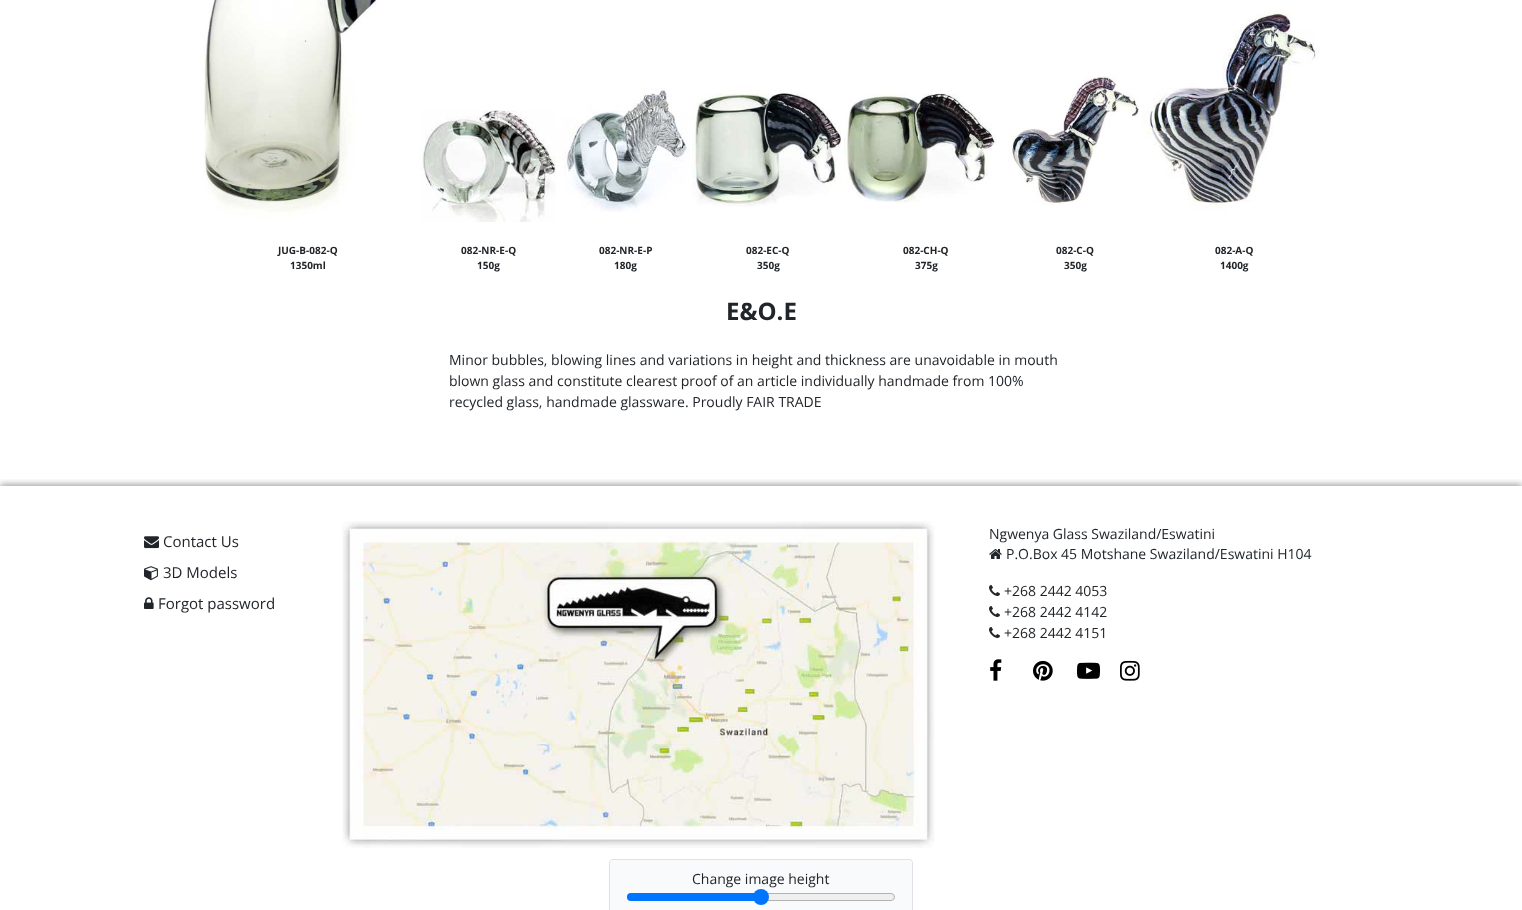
<!DOCTYPE html>
<meta charset="utf-8">
<style>body { margin: 0 } canvas { display: block }</style>
<canvas id="canvas" width="1522" height="910"></canvas>
<script type="module">
  const canvas = document.getElementById("canvas");
  const g = canvas.getContext("2d");
  g.miterLimit = 4;
  g.fontKerning = "normal";
  function drawText(s, x, y, [font, color]) {
    g.font = font;
    g.fillStyle = color;
    g.fillText(s, x, y);
  }
  function fillBox(x, y, w, h, color) {
    g.fillStyle = color;
    g.fillRect(x, y, w, h);
  }
  async function drawPicture(src, x, y, w, h) {
    const img = new Image();
    img.src = src;
    await img.decode();
    g.drawImage(img, x, y, w, h);
  }

  const s1 = ["bold 10px Open Sans", "#212529"];
  const s2 = ["bold 24px Open Sans", "#212529"];
  const s3 = ["14px Open Sans", "#212529"];
  const s4 = ["15px Open Sans", "#212529"];

  fillBox(0, 0, 1522, 910, "#FFFFFF");
  await drawPicture("pic1.png", 203, 0, 175, 218);
  drawText("JUG-B-082-Q", 278, 254, s1);
  drawText("1350ml", 290, 269, s1);
  await drawPicture("pic2.png", 419, 110, 137, 112);
  drawText("082-NR-E-Q", 461, 254, s1);
  drawText("150g", 477, 269, s1);
  await drawPicture("pic3.png", 558, 88, 132, 124);
  drawText("082-NR-E-P", 599, 254, s1);
  drawText("180g", 614, 269, s1);
  await drawPicture("pic4.png", 692, 90, 149, 117);
  drawText("082-EC-Q", 746, 254, s1);
  drawText("350g", 757, 269, s1);
  await drawPicture("pic5.png", 844, 93, 153, 110);
  drawText("082-CH-Q", 903, 254, s1);
  drawText("375g", 915, 269, s1);
  await drawPicture("pic6.png", 1008, 76, 131, 130);
  drawText("082-C-Q", 1056, 254, s1);
  drawText("350g", 1064, 269, s1);
  await drawPicture("pic7.png", 1143, 10, 177, 203);
  drawText("082-A-Q", 1215, 254, s1);
  drawText("1400g", 1220, 269, s1);
  drawText("E&O.E", 726, 320, s2);
  drawText("Minor bubbles, blowing lines and variations in height and thickness are unavoidable in mouth", 449, 365, s3);
  drawText("blown glass and constitute clearest proof of an article individually handmade from 100%", 449, 386, s3);
  drawText("recycled glass, handmade glassware. Proudly FAIR TRADE", 449, 407, s3);
  g.save();
  g.beginPath();
  g.rect(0, 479, 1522, 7);
  g.clip();
  g.fillStyle = "rgba(0, 0, 0, 0.35)";
  g.filter = "blur(3px)";
  g.beginPath();
  g.rect(0, 484, 1522, 424);
  g.fill();
  g.filter = "none";
  g.restore();
  g.fillStyle = "#F9FAFB";
  g.beginPath();
  g.roundRect(610, 860, 302, 50, [3, 3, 0, 0]);
  g.fill();
  g.fillStyle = "#DEE2E6";
  g.beginPath();
  g.moveTo(613, 859);
  g.lineTo(909, 859);
  g.bezierCurveTo(911, 859, 913, 861, 913, 863);
  g.lineTo(913, 910);
  g.lineTo(609, 910);
  g.lineTo(609, 863);
  g.bezierCurveTo(609, 861, 611, 859, 613, 859);
  g.closePath();
  g.moveTo(613, 860);
  g.lineTo(909, 860);
  g.bezierCurveTo(911, 860, 912, 861, 912, 863);
  g.lineTo(912, 910);
  g.lineTo(610, 910);
  g.lineTo(610, 863);
  g.bezierCurveTo(610, 861, 611, 860, 613, 860);
  g.closePath();
  g.fill("evenodd");
  drawText("Change image height", 692, 884, s3);
  g.fillStyle = "#EFEFEF";
  g.beginPath();
  g.roundRect(627.5, 893.5, 267, 7, 3.5);
  g.fill();
  g.strokeStyle = "#B2B2B2";
  g.stroke();
  g.fillStyle = "#0075FF";
  g.beginPath();
  g.roundRect(627, 893, 134, 8, [4, 0, 0, 4]);
  g.fill();
  g.beginPath();
  g.arc(761, 897, 8, 0, Math.PI * 2);
  g.fill();
  await drawPicture("pic8.png", 144, 536, 15, 13);
  drawText("Contact Us", 163, 547, s4);
  await drawPicture("pic9.png", 144, 566, 14, 15);
  drawText("3D Models", 163, 578, s4);
  await drawPicture("pic10.png", 144, 597, 10, 12);
  drawText("Forgot password", 158, 609, s4);
  await drawPicture("pic11.png", 342, 521, 593, 327);
  drawText("Ngwenya Glass Swaziland/Eswatini", 989, 539, s3);
  await drawPicture("pic12.png", 989, 549, 13, 10);
  drawText("P.O.Box 45 Motshane Swaziland/Eswatini H104", 1006, 559, s3);
  await drawPicture("pic13.png", 989, 585, 11, 11);
  drawText("+268 2442 4053", 1004, 596, s3);
  await drawPicture("pic13.png", 989, 606, 11, 11);
  drawText("+268 2442 4142", 1004, 617, s3);
  await drawPicture("pic13.png", 989, 627, 11, 11);
  drawText("+268 2442 4151", 1004, 638, s3);
  await drawPicture("pic14.png", 990, 659, 12, 22);
  await drawPicture("pic15.png", 1033, 660, 20, 21);
  await drawPicture("pic16.png", 1077, 662, 23, 17);
  await drawPicture("pic17.png", 1120, 660, 20, 21);
</script>
